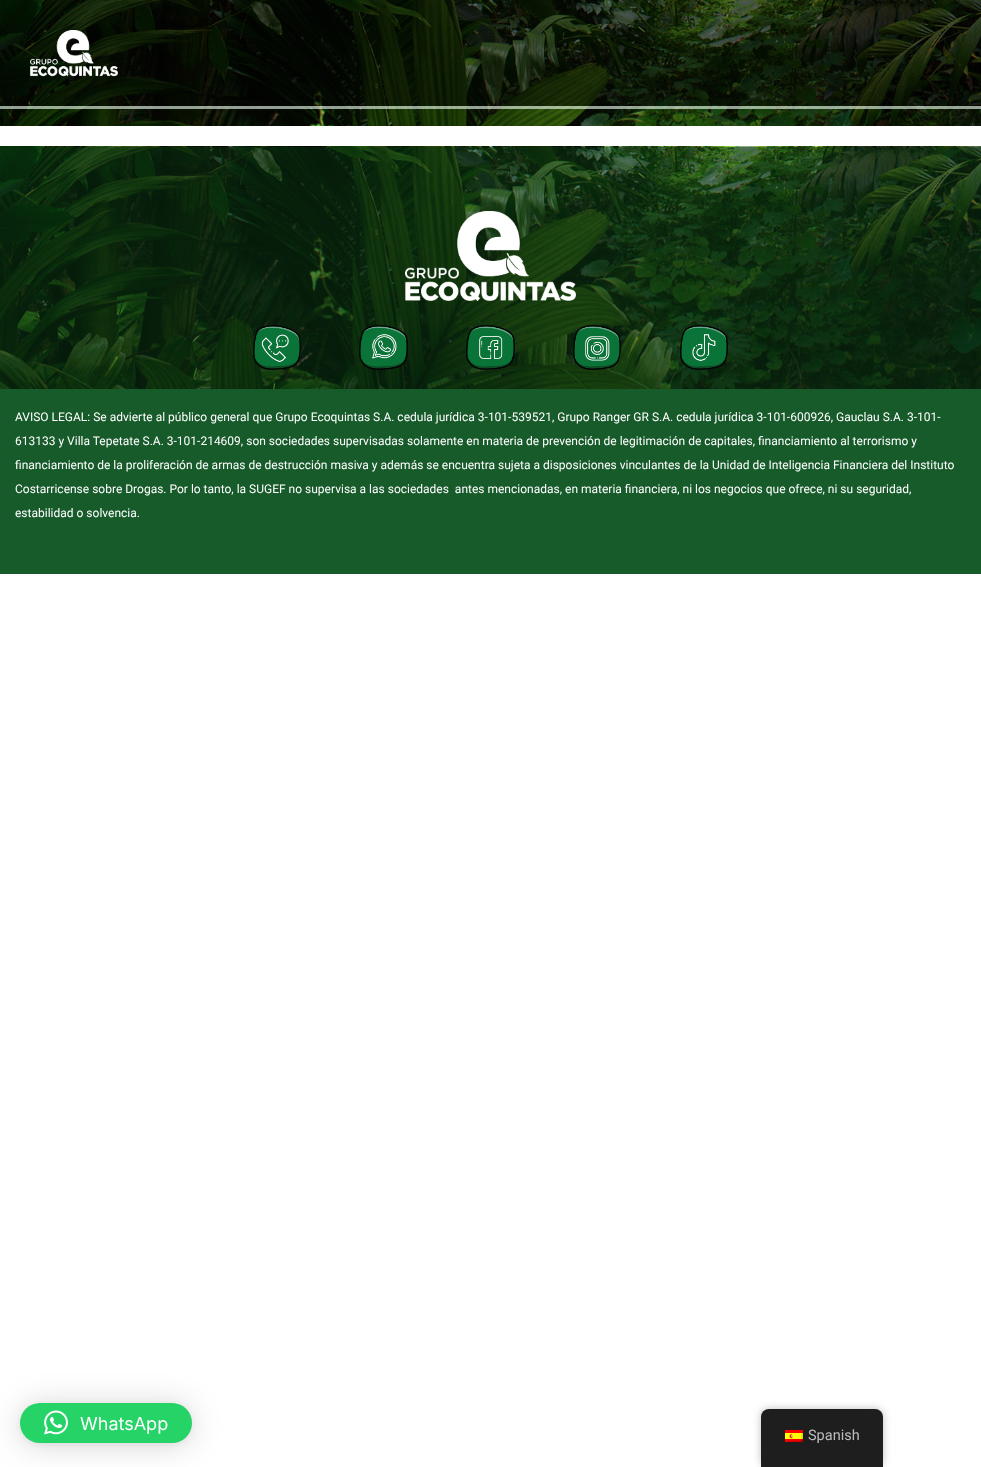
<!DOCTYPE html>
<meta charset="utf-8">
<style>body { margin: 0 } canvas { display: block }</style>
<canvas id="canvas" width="981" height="1467"></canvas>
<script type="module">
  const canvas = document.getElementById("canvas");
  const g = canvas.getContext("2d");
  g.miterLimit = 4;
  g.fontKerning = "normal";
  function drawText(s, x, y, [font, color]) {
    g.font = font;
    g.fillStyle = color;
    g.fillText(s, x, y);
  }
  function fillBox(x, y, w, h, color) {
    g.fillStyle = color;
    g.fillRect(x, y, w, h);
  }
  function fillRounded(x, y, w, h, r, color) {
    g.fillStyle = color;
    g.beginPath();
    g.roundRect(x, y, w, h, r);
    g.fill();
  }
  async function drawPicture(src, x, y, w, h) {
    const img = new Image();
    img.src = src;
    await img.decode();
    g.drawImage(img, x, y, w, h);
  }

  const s1 = ["12px Roboto", "#FFFFFF"];
  const s2 = ["18px Inter", "#FFFFFF"];
  const s3 = ["14.5px Roboto", "#BDBDBD"];

  fillBox(0, 0, 981, 1467, "#FFFFFF");
  await drawPicture("pic1.png", 0, 0, 981, 126);
  fillBox(0, 0, 981, 106, "rgba(2, 2, 1, 0.5)");
  await drawPicture("pic2.png", 30, 30, 88, 47);
  fillBox(537, 50, 20, 29, "rgba(0, 0, 0, 0.05)");
  fillBox(0, 106, 981, 3, "rgba(240, 255, 242, 0.61)");
  await drawPicture("pic3.png", 0, 146, 981, 1);
  await drawPicture("pic4.png", 0, 147, 981, 242);
  await drawPicture("pic5.png", 405, 211, 171, 90);
  await drawPicture("pic6.png", 253, 325, 48, 45);
  await drawPicture("pic7.png", 359, 325, 49, 45);
  await drawPicture("pic8.png", 466, 325, 49, 45);
  await drawPicture("pic9.png", 573, 325, 48, 45);
  await drawPicture("pic10.png", 680, 325, 48, 45);
  fillBox(0, 389, 981, 185, "#175B2B");
  drawText("AVISO LEGAL: Se advierte al público general que Grupo Ecoquintas S.A. cedula jurídica 3-101-539521, Grupo Ranger GR S.A. cedula jurídica 3-101-600926, Gauclau S.A. 3-101-", 15, 421, s1);
  drawText("613133 y Villa Tepetate S.A. 3-101-214609, son sociedades supervisadas solamente en materia de prevención de legitimación de capitales, financiamiento al terrorismo y", 15, 445, s1);
  drawText("financiamiento de la proliferación de armas de destrucción masiva y además se encuentra sujeta a disposiciones vinculantes de la Unidad de Inteligencia Financiera del Instituto", 15, 469, s1);
  drawText("Costarricense sobre Drogas. Por lo tanto, la SUGEF no supervisa a las sociedades  antes mencionadas, en materia financiera, ni los negocios que ofrece, ni su seguridad,", 15, 493, s1);
  drawText("estabilidad o solvencia.", 15, 517, s1);
  g.fillStyle = "rgba(0, 0, 0, 0.16)";
  g.filter = "blur(16px)";
  g.beginPath();
  g.roundRect(20, 1405, 172, 40, 20);
  g.fill();
  g.filter = "none";
  g.fillStyle = "rgba(0, 0, 0, 0.06)";
  g.filter = "blur(3px)";
  g.beginPath();
  g.roundRect(20, 1404, 172, 40, 20);
  g.fill();
  g.filter = "none";
  fillRounded(20, 1403, 172, 40, 20, "#25D366");
  await drawPicture("pic11.png", 44, 1410, 24, 25);
  drawText("WhatsApp", 80, 1430, s2);
  g.fillStyle = "rgba(0, 0, 0, 0.25)";
  g.filter = "blur(4px)";
  g.beginPath();
  g.roundRect(761, 1409, 122, 58, 8);
  g.fill();
  g.filter = "none";
  g.fillStyle = "#1E1E1E";
  g.beginPath();
  g.roundRect(761, 1409, 122, 58, [8, 8, 0, 0]);
  g.fill();
  await drawPicture("pic12.png", 785, 1430, 18, 12);
  drawText("Spanish", 808, 1440, s3);
</script>
